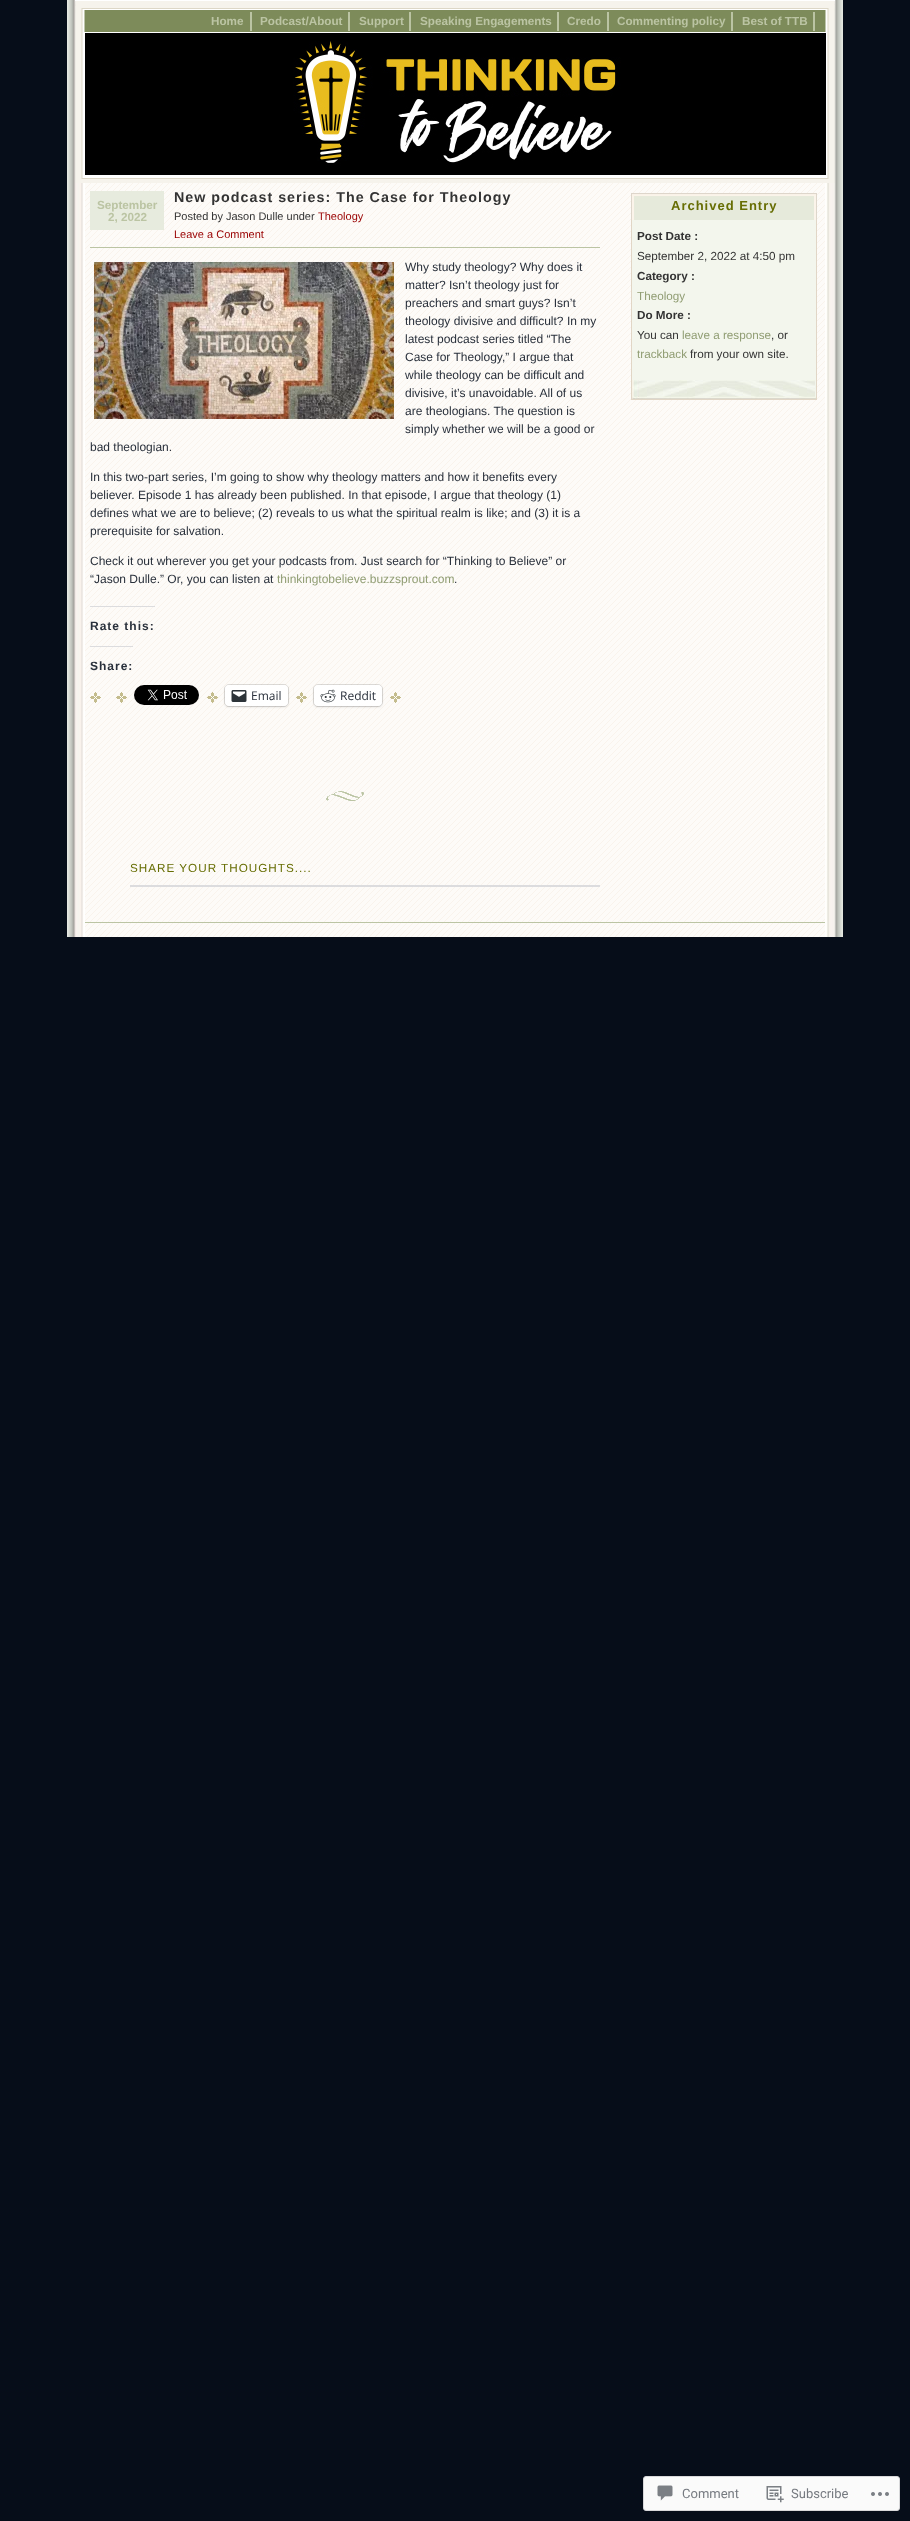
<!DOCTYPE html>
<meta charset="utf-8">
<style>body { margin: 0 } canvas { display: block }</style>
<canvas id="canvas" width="910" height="2521"></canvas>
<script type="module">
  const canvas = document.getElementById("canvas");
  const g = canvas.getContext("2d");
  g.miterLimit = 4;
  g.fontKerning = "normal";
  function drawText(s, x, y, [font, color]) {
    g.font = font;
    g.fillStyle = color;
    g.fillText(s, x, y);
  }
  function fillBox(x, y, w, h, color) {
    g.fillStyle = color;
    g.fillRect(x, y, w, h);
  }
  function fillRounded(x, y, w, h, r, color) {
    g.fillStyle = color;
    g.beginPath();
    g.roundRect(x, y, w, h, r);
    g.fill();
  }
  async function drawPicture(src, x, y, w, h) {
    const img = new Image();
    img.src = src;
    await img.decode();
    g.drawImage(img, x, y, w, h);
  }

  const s1 = ["bold 11.7px Liberation Sans", "#BBC4A3"];
  const s2 = ["bold 14.3px Liberation Sans", "#333333"];
  const s3 = ["11px Liberation Sans", "#333333"];
  const s4 = ["11px Liberation Sans", "#990000"];
  const s5 = ["12px Liberation Sans", "#29303B"];
  const s6 = ["12px Liberation Sans", "#909D73"];
  const s7 = ["bold 12px Liberation Sans", "#29303B"];
  const s8 = ["12px Open Sans", "#29303B"];
  const s9 = ["11.7px Liberation Sans", "#676E04"];
  const s10 = ["bold 13px Liberation Sans", "#676E04"];
  const s11 = ["bold 11.7px Liberation Sans", "#333333"];
  const s12 = ["11.7px Liberation Sans", "#333333"];
  const s13 = ["11.7px Liberation Sans", "#909D73"];
  const s14 = ["13px Roboto", "#767A80"];

  fillBox(0, 0, 910, 2521, "#060D19");
  await drawPicture("pic1.png", 67, 0, 776, 937);
  fillBox(75, 0, 760, 176, "#FFFFFF");
  await drawPicture("pic2.png", 75, 1, 760, 182);
  fillBox(250, 12, 2, 19, "#BBC4A3");
  drawText("Home", 211, 25, s1);
  fillBox(348, 12, 2, 19, "#BBC4A3");
  drawText("Podcast/About", 260, 25, s1);
  fillBox(409, 12, 2, 19, "#BBC4A3");
  drawText("Support", 359, 25, s1);
  fillBox(557, 12, 2, 19, "#BBC4A3");
  drawText("Speaking Engagements", 420, 25, s1);
  fillBox(607, 12, 2, 19, "#BBC4A3");
  drawText("Credo", 567, 25, s1);
  fillBox(731, 12, 2, 19, "#BBC4A3");
  drawText("Commenting policy", 617, 25, s1);
  fillBox(813, 12, 2, 19, "#BBC4A3");
  drawText("Best of TTB", 742, 25, s1);
  await drawPicture("pic3.png", 85, 33, 741, 142);
  await drawPicture("pic4.png", 85, 183, 740, 754);
  fillBox(90, 191, 74, 39, "#E7EBDE");
  drawText("September", 97, 209, s1);
  drawText("2, 2022", 108, 221, s1);
  g.letterSpacing = "1px";
  drawText("New podcast series: The Case for Theology", 174, 202, s2);
  g.letterSpacing = "0px";
  drawText("Posted by Jason Dulle under", 174, 220, s3);
  drawText("Theology", 318, 220, s4);
  drawText("Leave a Comment", 174, 238, s4);
  fillBox(90, 247, 510, 1, "#BBC4A3");
  await drawPicture("pic5.png", 94, 262, 300, 157);
  drawText("Why study theology? Why does it", 405, 271, s5);
  drawText("matter? Isn’t theology just for", 405, 289, s5);
  drawText("preachers and smart guys? Isn’t", 405, 307, s5);
  drawText("theology divisive and difficult? In my", 405, 325, s5);
  drawText("latest podcast series titled “The", 405, 343, s5);
  drawText("Case for Theology,” I argue that", 405, 361, s5);
  drawText("while theology can be difficult and", 405, 379, s5);
  drawText("divisive, it’s unavoidable. All of us", 405, 397, s5);
  drawText("are theologians. The question is", 405, 415, s5);
  drawText("simply whether we will be a good or", 405, 433, s5);
  drawText("bad theologian.", 90, 451, s5);
  drawText("In this two-part series, I’m going to show why theology matters and how it benefits every", 90, 481, s5);
  drawText("believer. Episode 1 has already been published. In that episode, I argue that theology (1)", 90, 499, s5);
  drawText("defines what we are to believe; (2) reveals to us what the spiritual realm is like; and (3) it is a", 90, 517, s5);
  drawText("prerequisite for salvation.", 90, 535, s5);
  drawText("Check it out wherever you get your podcasts from. Just search for “Thinking to Believe” or", 90, 565, s5);
  drawText("“Jason Dulle.” Or, you can listen at", 90, 583, s5);
  drawText("thinkingtobelieve.buzzsprout.com", 277, 583, s6);
  drawText(".", 454, 583, s5);
  fillBox(90, 606, 65, 1, "#DCDCDE");
  g.letterSpacing = "1px";
  drawText("Rate this:", 90, 630, s7);
  fillBox(90, 646, 43, 1, "#DCDCDE");
  drawText("Share:", 90, 670, s7);
  await drawPicture("pic6.png", 90, 692, 11, 11);
  await drawPicture("pic7.png", 116, 692, 11, 11);
  await drawPicture("pic8.png", 134, 685, 65, 20);
  await drawPicture("pic9.png", 207, 692, 11, 11);
  g.beginPath();
  g.roundRect(224.5, 684.5, 64, 22, 4.5);
  g.strokeStyle = "rgba(0, 0, 0, 0.12)";
  g.stroke();
  g.fillStyle = "rgba(0, 0, 0, 0.12)";
  g.filter = "blur(1px)";
  g.beginPath();
  g.roundRect(225, 686, 63, 21, 4);
  g.fill();
  g.filter = "none";
  fillRounded(225, 685, 63, 21, 4, "#FFFFFF");
  await drawPicture("pic10.png", 231, 690, 16, 12);
  g.letterSpacing = "0px";
  drawText("Email", 251, 700, s8);
  await drawPicture("pic7.png", 296, 692, 11, 11);
  g.beginPath();
  g.roundRect(313.5, 684.5, 69, 22, 4.5);
  g.stroke();
  g.fillStyle = "rgba(0, 0, 0, 0.12)";
  g.filter = "blur(1px)";
  g.beginPath();
  g.roundRect(314, 686, 68, 21, 4);
  g.fill();
  g.filter = "none";
  fillRounded(314, 685, 68, 21, 4, "#FFFFFF");
  await drawPicture("pic11.png", 320, 689, 16, 14);
  drawText("Reddit", 340, 700, s8);
  await drawPicture("pic6.png", 390, 692, 11, 11);
  await drawPicture("pic12.png", 326, 791, 38, 10);
  g.letterSpacing = "1px";
  drawText("SHARE YOUR THOUGHTS....", 130, 872, s9);
  fillBox(130, 885, 470, 2, "#DCDCDE");
  await drawPicture("pic13.png", 631, 193, 186, 27);
  drawText("Archived Entry", 671, 210, s10);
  fillBox(632, 220, 184, 160, "#F3F6ED");
  await drawPicture("pic14.png", 632, 380, 184, 19);
  fillBox(816, 220, 1, 180, "#E1D6C6");
  fillBox(631, 399, 186, 1, "#E1D6C6");
  fillBox(631, 220, 1, 180, "#E1D6C6");
  g.letterSpacing = "0px";
  drawText("Post Date :", 637, 240, s11);
  drawText("September 2, 2022 at 4:50 pm", 637, 260, s12);
  drawText("Category :", 637, 280, s11);
  drawText("Theology", 637, 300, s13);
  drawText("Do More :", 637, 319, s11);
  drawText("You can", 637, 339, s12);
  drawText("leave a response", 682, 339, s13);
  drawText(", or", 771, 339, s12);
  drawText("trackback", 637, 358, s13);
  drawText("from your own site.", 690, 358, s12);
  fillBox(85, 922, 740, 1, "#BBC4A3");
  g.fillStyle = "#FAFAFA";
  g.beginPath();
  g.roundRect(643.5, 2476.5, 256, 34, 2.5);
  g.fill();
  g.strokeStyle = "#D8D8DA";
  g.stroke();
  await drawPicture("pic15.png", 657, 2485, 16, 16);
  drawText("Comment", 682, 2498, s14);
  await drawPicture("pic16.png", 766, 2486, 18, 17);
  drawText("Subscribe", 791, 2498, s14);
  await drawPicture("pic17.png", 871, 2492, 18, 4);
</script>
